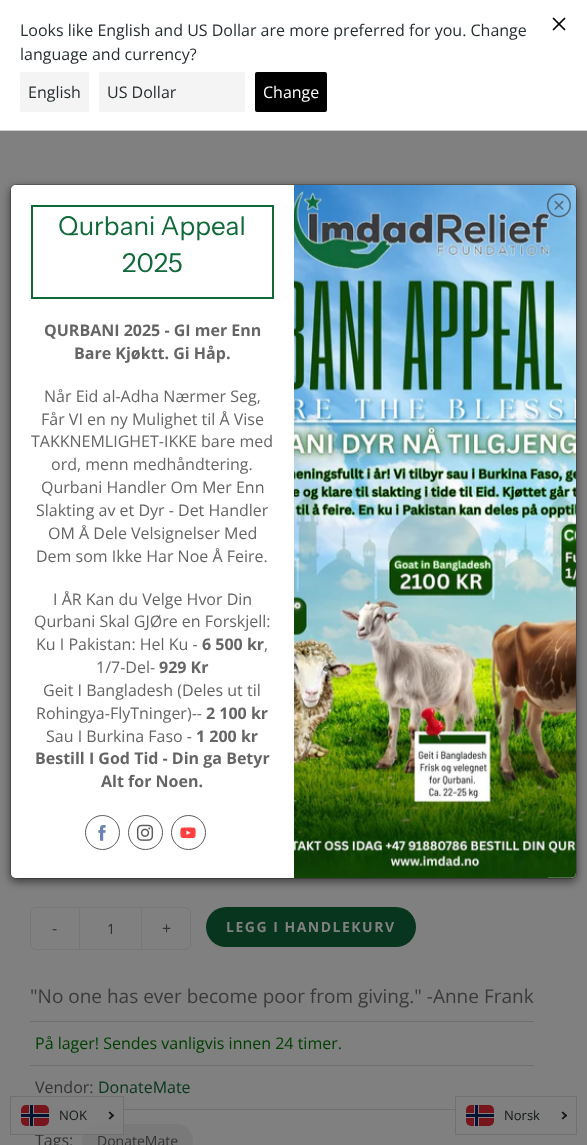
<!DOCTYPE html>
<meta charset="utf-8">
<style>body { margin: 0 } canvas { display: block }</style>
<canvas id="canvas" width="587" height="1145"></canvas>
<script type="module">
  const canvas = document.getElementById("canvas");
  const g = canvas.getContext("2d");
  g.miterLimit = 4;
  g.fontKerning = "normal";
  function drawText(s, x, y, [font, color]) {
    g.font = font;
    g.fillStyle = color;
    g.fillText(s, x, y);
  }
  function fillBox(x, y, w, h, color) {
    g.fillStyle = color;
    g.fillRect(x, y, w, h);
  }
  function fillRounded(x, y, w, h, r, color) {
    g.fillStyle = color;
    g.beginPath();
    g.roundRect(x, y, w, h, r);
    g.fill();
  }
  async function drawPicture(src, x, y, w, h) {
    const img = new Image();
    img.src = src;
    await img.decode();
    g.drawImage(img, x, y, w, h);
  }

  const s1 = ["16px Open Sans", "#272E31"];
  const s2 = ["16px Open Sans", "#FFFFFF"];
  const s3 = ["26px Instrument Sans", "#0F6939"];
  const s4 = ["bold 16px Open Sans", "#666565"];
  const s5 = ["16px Open Sans", "#666565"];
  const s6 = ["16px Open Sans", "#333333"];
  const s7 = ["14px Open Sans", "#2B2B2B"];
  const s8 = ["bold 14px Open Sans", "#808080"];
  const s9 = ["19px Open Sans", "#3B3A3A"];
  const s10 = ["16px Open Sans", "#004000"];
  const s11 = ["16px Open Sans", "#08351D"];
  const s12 = ["14px Open Sans", "#333333"];
  const s13 = ["13px Open Sans", "#141719"];

  fillBox(0, 0, 587, 1145, "#808080");
  fillBox(0, 0, 587, 130, "#FFFFFF");
  fillBox(0, 130, 587, 1, "#CCCCCC");
  drawText("Looks like English and US Dollar are more preferred for you. Change", 20, 36, s1);
  drawText("language and currency?", 20, 60, s1);
  fillRounded(20, 72, 69, 40, 2, "#F4F4F4");
  drawText("English", 28, 98, s1);
  fillRounded(99, 72, 146, 40, 2, "#F4F4F4");
  drawText("US Dollar", 107, 98, s1);
  fillRounded(255, 72, 72, 40, 2, "#000000");
  drawText("Change", 263, 98, s2);
  await drawPicture("pic1.png", 552, 17, 14, 14);
  g.fillStyle = "rgba(0, 0, 0, 0.5)";
  g.filter = "blur(4.5px)";
  g.beginPath();
  g.roundRect(10, 187, 567, 695, 6);
  g.fill();
  g.filter = "none";
  fillRounded(11, 185, 565, 693, 5, "#FFFFFF");
  g.beginPath();
  g.roundRect(10.5, 184.5, 566, 694, 5.5);
  g.strokeStyle = "rgba(0, 0, 0, 0.2)";
  g.stroke();
  g.beginPath();
  g.roundRect(11, 185, 283, 693, [5, 0, 0, 5]);
  g.fill();
  await drawPicture("pic6.png", 294, 185, 282, 693);
  await drawPicture("pic2.png", 547, 193, 24, 25);
  g.strokeStyle = "#0F6939";
  g.lineWidth = 2;
  g.strokeRect(32, 206, 241, 92);
  drawText("Qurbani Appeal", 58, 235, s3);
  drawText("2025", 122, 272, s3);
  drawText("QURBANI 2025 - GI mer Enn", 44, 336, s4);
  drawText("Bare Kjøktt. Gi Håp.", 74, 359, s4);
  drawText("Når Eid al-Adha Nærmer Seg,", 44, 402, s5);
  drawText("Får VI en ny Mulighet til Å Vise", 41, 425, s5);
  drawText("TAKKNEMLIGHET-IKKE bare med", 31, 447, s5);
  drawText("ord, menn medhåndtering.", 51, 470, s5);
  drawText("Qurbani Handler Om Mer Enn", 41, 493, s5);
  drawText("Slakting av et Dyr - Det Handler", 36, 516, s5);
  drawText("OM Å Dele Velsignelser Med", 48, 539, s5);
  drawText("Dem som Ikke Har Noe Å Feire.", 36, 562, s5);
  drawText("I ÅR Kan du Velge Hvor Din", 53, 605, s5);
  drawText("Qurbani Skal GJØre en Forskjell:", 34, 627, s5);
  drawText("Ku I Pakistan: Hel Ku -", 36, 650, s5);
  drawText("6 500 kr", 202, 650, s4);
  drawText(",", 264, 650, s5);
  drawText("1/7-Del-", 96, 673, s5);
  drawText("929 Kr", 159, 673, s4);
  drawText("Geit I Bangladesh (Deles ut til", 43, 696, s5);
  drawText("Rohingya-FlyTninger)--", 36, 719, s5);
  drawText("2 100 kr", 206, 719, s4);
  drawText("Sau I Burkina Faso -", 46, 742, s5);
  drawText("1 200 kr", 196, 742, s4);
  drawText("Bestill I God Tid - Din ga Betyr", 35, 764, s4);
  drawText("Alt for Noen.", 101, 787, s4);
  g.beginPath();
  g.arc(102.5, 832.5, 17, 0, Math.PI * 2);
  g.strokeStyle = "#5C5C5C";
  g.lineWidth = 1;
  g.stroke();
  await drawPicture("pic3.png", 98, 825, 8, 16);
  g.beginPath();
  g.arc(145.5, 832.5, 17, 0, Math.PI * 2);
  g.stroke();
  await drawPicture("pic4.png", 136, 824, 18, 17);
  g.beginPath();
  g.arc(188.5, 832.5, 17, 0, Math.PI * 2);
  g.stroke();
  await drawPicture("pic5.png", 180, 827, 16, 12);
  g.beginPath();
  g.roundRect(30.5, 907.5, 160, 42, 5.5);
  g.strokeStyle = "#777777";
  g.stroke();
  drawText("-", 52, 934, s6);
  fillBox(141, 908, 1, 41, "#777777");
  fillBox(79, 908, 1, 41, "#777777");
  drawText("1", 107, 934, s7);
  drawText("+", 162, 934, s6);
  fillRounded(206, 907, 210, 40, 20, "#08351D");
  g.letterSpacing = "1.5px";
  drawText("LEGG I HANDLEKURV", 226, 932, s8);
  g.letterSpacing = "0px";
  drawText("\"No one has ever become poor from giving.\" -Anne Frank", 30, 1003, s9);
  fillBox(30, 1021, 504, 1, "#6F6F6F");
  drawText("På lager! Sendes vanligvis innen 24 timer.", 35, 1049, s10);
  fillBox(30, 1065, 504, 1, "#6F6F6F");
  drawText("Vendor:", 35, 1093, s6);
  drawText("DonateMate", 98, 1093, s11);
  fillBox(48, 1109, 407, 1, "#6F6F6F");
  drawText("Tags:", 35, 1146, s6);
  fillRounded(82, 1124, 111, 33, 16.5, "#797979");
  drawText("DonateMate", 97, 1146, s12);
  fillBox(48, 1109, 75, 25, "rgba(128, 128, 128, 0.95)");
  g.strokeStyle = "#707070";
  g.strokeRect(10.5, 1096.5, 113, 38);
  fillRounded(21, 1105, 28, 21, 5, "#77151D");
  fillBox(29, 1105, 5, 21, "#808080");
  fillBox(21, 1113, 28, 5, "#808080");
  fillBox(30, 1105, 3, 21, "#001332");
  fillBox(21, 1114, 28, 3, "#001332");
  drawText("NOK", 59, 1120, s13);
  g.beginPath();
  g.moveTo(110, 1111.5);
  g.lineTo(114, 1115.5);
  g.lineTo(113, 1117);
  g.lineTo(108.5, 1112.5);
  g.closePath();
  g.fill();
  g.beginPath();
  g.moveTo(113, 1114);
  g.lineTo(114, 1115.5);
  g.lineTo(110, 1119.5);
  g.lineTo(108.5, 1118.5);
  g.closePath();
  g.fill();
  g.strokeRect(455.5, 1096.5, 121, 38);
  fillRounded(466, 1105, 28, 21, 5, "#77151D");
  fillBox(474, 1105, 5, 21, "#808080");
  fillBox(466, 1113, 28, 5, "#808080");
  fillBox(475, 1105, 3, 21, "#001332");
  fillBox(466, 1114, 28, 3, "#001332");
  drawText("Norsk", 504, 1120, s13);
  g.beginPath();
  g.moveTo(563, 1111.5);
  g.lineTo(567, 1115.5);
  g.lineTo(566, 1117);
  g.lineTo(561.5, 1112.5);
  g.closePath();
  g.fill();
  g.beginPath();
  g.moveTo(566, 1114);
  g.lineTo(567, 1115.5);
  g.lineTo(563, 1119.5);
  g.lineTo(561.5, 1118.5);
  g.closePath();
  g.fill();
</script>
